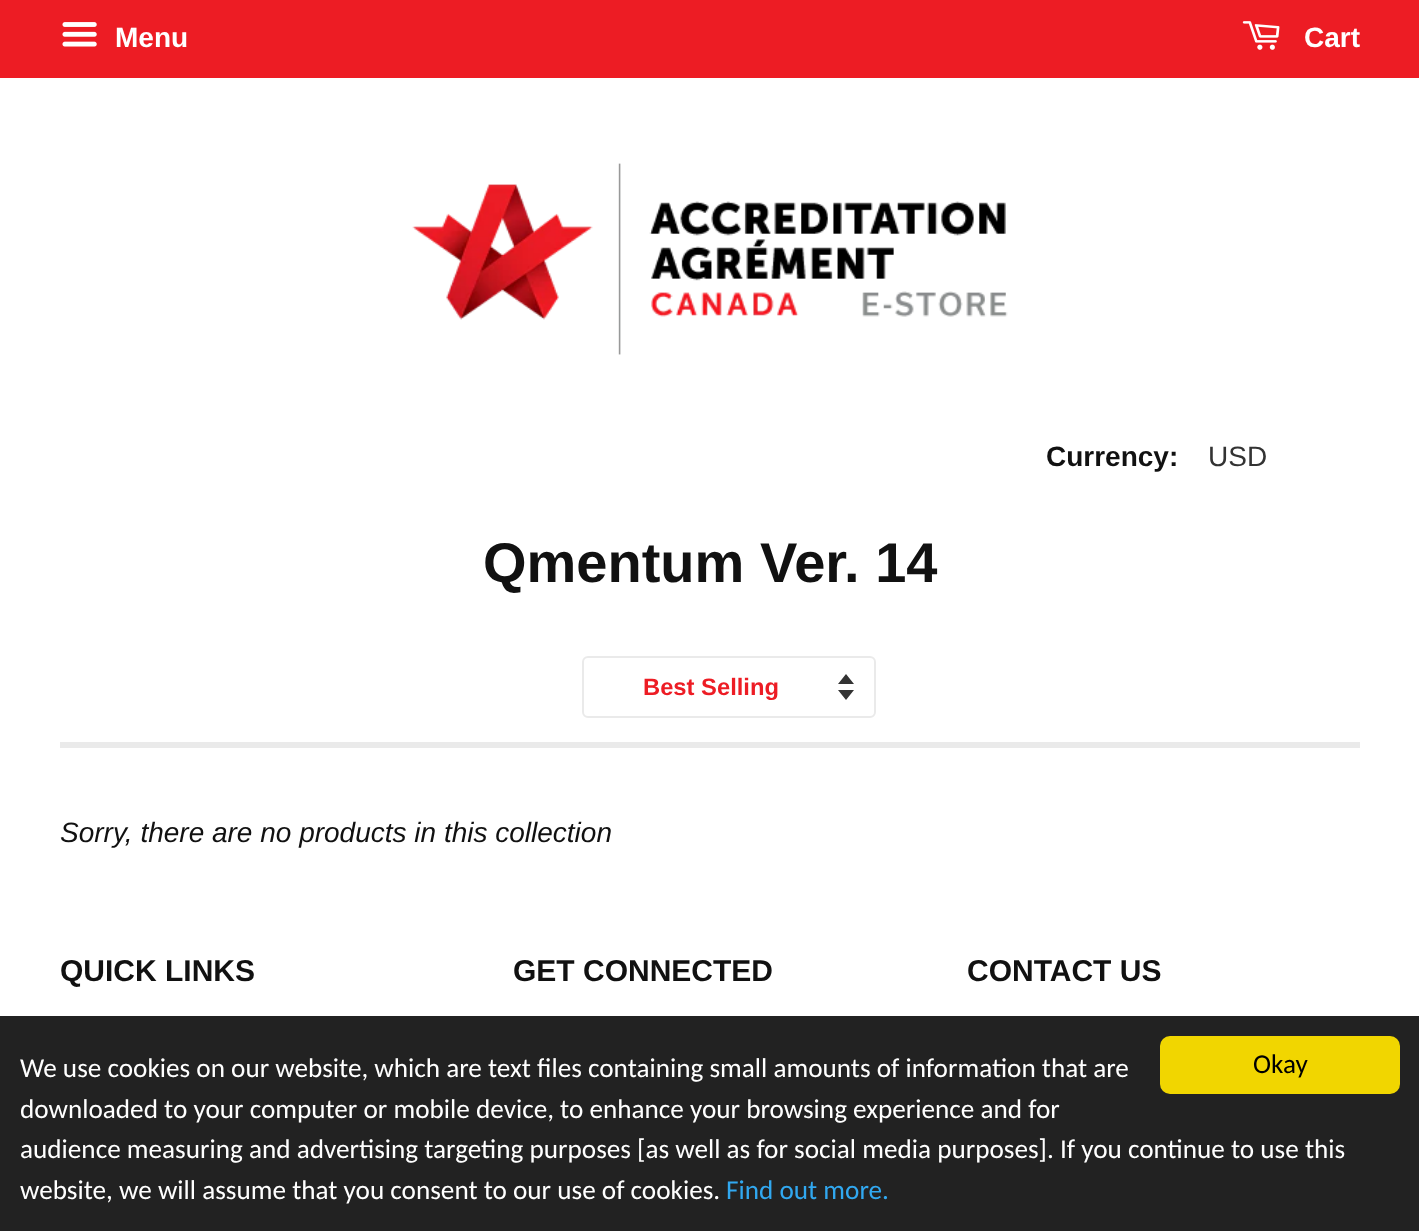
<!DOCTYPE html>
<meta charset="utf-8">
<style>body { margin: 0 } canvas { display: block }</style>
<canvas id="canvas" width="1419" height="1231"></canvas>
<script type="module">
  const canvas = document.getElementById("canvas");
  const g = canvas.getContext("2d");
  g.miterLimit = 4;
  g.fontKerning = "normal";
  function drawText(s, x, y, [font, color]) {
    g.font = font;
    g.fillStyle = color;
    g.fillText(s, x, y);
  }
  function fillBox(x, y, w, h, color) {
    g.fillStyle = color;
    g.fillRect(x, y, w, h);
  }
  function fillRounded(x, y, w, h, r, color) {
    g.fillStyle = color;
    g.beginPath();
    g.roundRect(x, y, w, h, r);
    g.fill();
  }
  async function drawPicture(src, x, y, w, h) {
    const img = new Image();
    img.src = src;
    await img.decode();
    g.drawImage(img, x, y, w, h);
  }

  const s1 = ["bold 28px Liberation Sans", "#FFFFFF"];
  const s2 = ["bold 28px Liberation Sans", "#111111"];
  const s3 = ["28px Liberation Sans", "#333333"];
  const s4 = ["bold 56px Liberation Sans", "#111111"];
  const s5 = ["bold 23.75px Liberation Sans", "#ED1C24"];
  const s6 = ["italic 28px Liberation Sans", "#111111"];
  const s7 = ["bold 30px Liberation Sans", "#111111"];
  const s8 = ["27.2px Carlito", "#000000"];
  const s9 = ["27.2px Carlito", "#FFFFFF"];
  const s10 = ["27.2px Carlito", "#31A8F0"];

  fillBox(0, 0, 1419, 1231, "#FFFFFF");
  fillBox(0, 0, 1419, 78, "#ED1C24");
  await drawPicture("pic1.png", 62, 22, 35, 25);
  drawText("Menu", 115, 47, s1);
  await drawPicture("pic2.png", 1242, 21, 38, 29);
  drawText("Cart", 1304, 47, s1);
  await drawPicture("pic3.png", 412, 163, 596, 192);
  drawText("Currency:", 1046, 466, s2);
  drawText("USD", 1208, 466, s3);
  fillBox(60, 742, 1300, 6, "#EAEAEA");
  drawText("Qmentum Ver. 14", 483, 582, s4);
  g.fillStyle = "#333333";
  g.beginPath();
  g.moveTo(838, 690);
  g.lineTo(846, 700);
  g.lineTo(854, 690);
  g.closePath();
  g.moveTo(846, 674);
  g.lineTo(838, 684);
  g.lineTo(854, 684);
  g.closePath();
  g.fill();
  g.beginPath();
  g.roundRect(583, 657, 292, 60, 5);
  g.strokeStyle = "#EAEAEA";
  g.lineWidth = 2;
  g.stroke();
  drawText("Best Selling", 643, 695, s5);
  drawText("Sorry, there are no products in this collection", 60, 842, s6);
  drawText("QUICK LINKS", 60, 981, s7);
  drawText("GET CONNECTED", 513, 981, s7);
  drawText("CONTACT US", 967, 981, s7);
  fillBox(0, 1016, 1419, 215, "#222222");
  fillRounded(1160, 1036, 240, 58, 10, "#F1D600");
  drawText("Okay", 1253, 1073, s8);
  drawText("We use cookies on our website, which are text files containing small amounts of information that are", 20, 1077, s9);
  drawText("downloaded to your computer or mobile device, to enhance your browsing experience and for", 20, 1118, s9);
  drawText("audience measuring and advertising targeting purposes [as well as for social media purposes]. If you continue to use this", 20, 1158, s9);
  drawText("website, we will assume that you consent to our use of cookies.", 20, 1199, s9);
  drawText("Find out more.", 726, 1199, s10);
</script>
